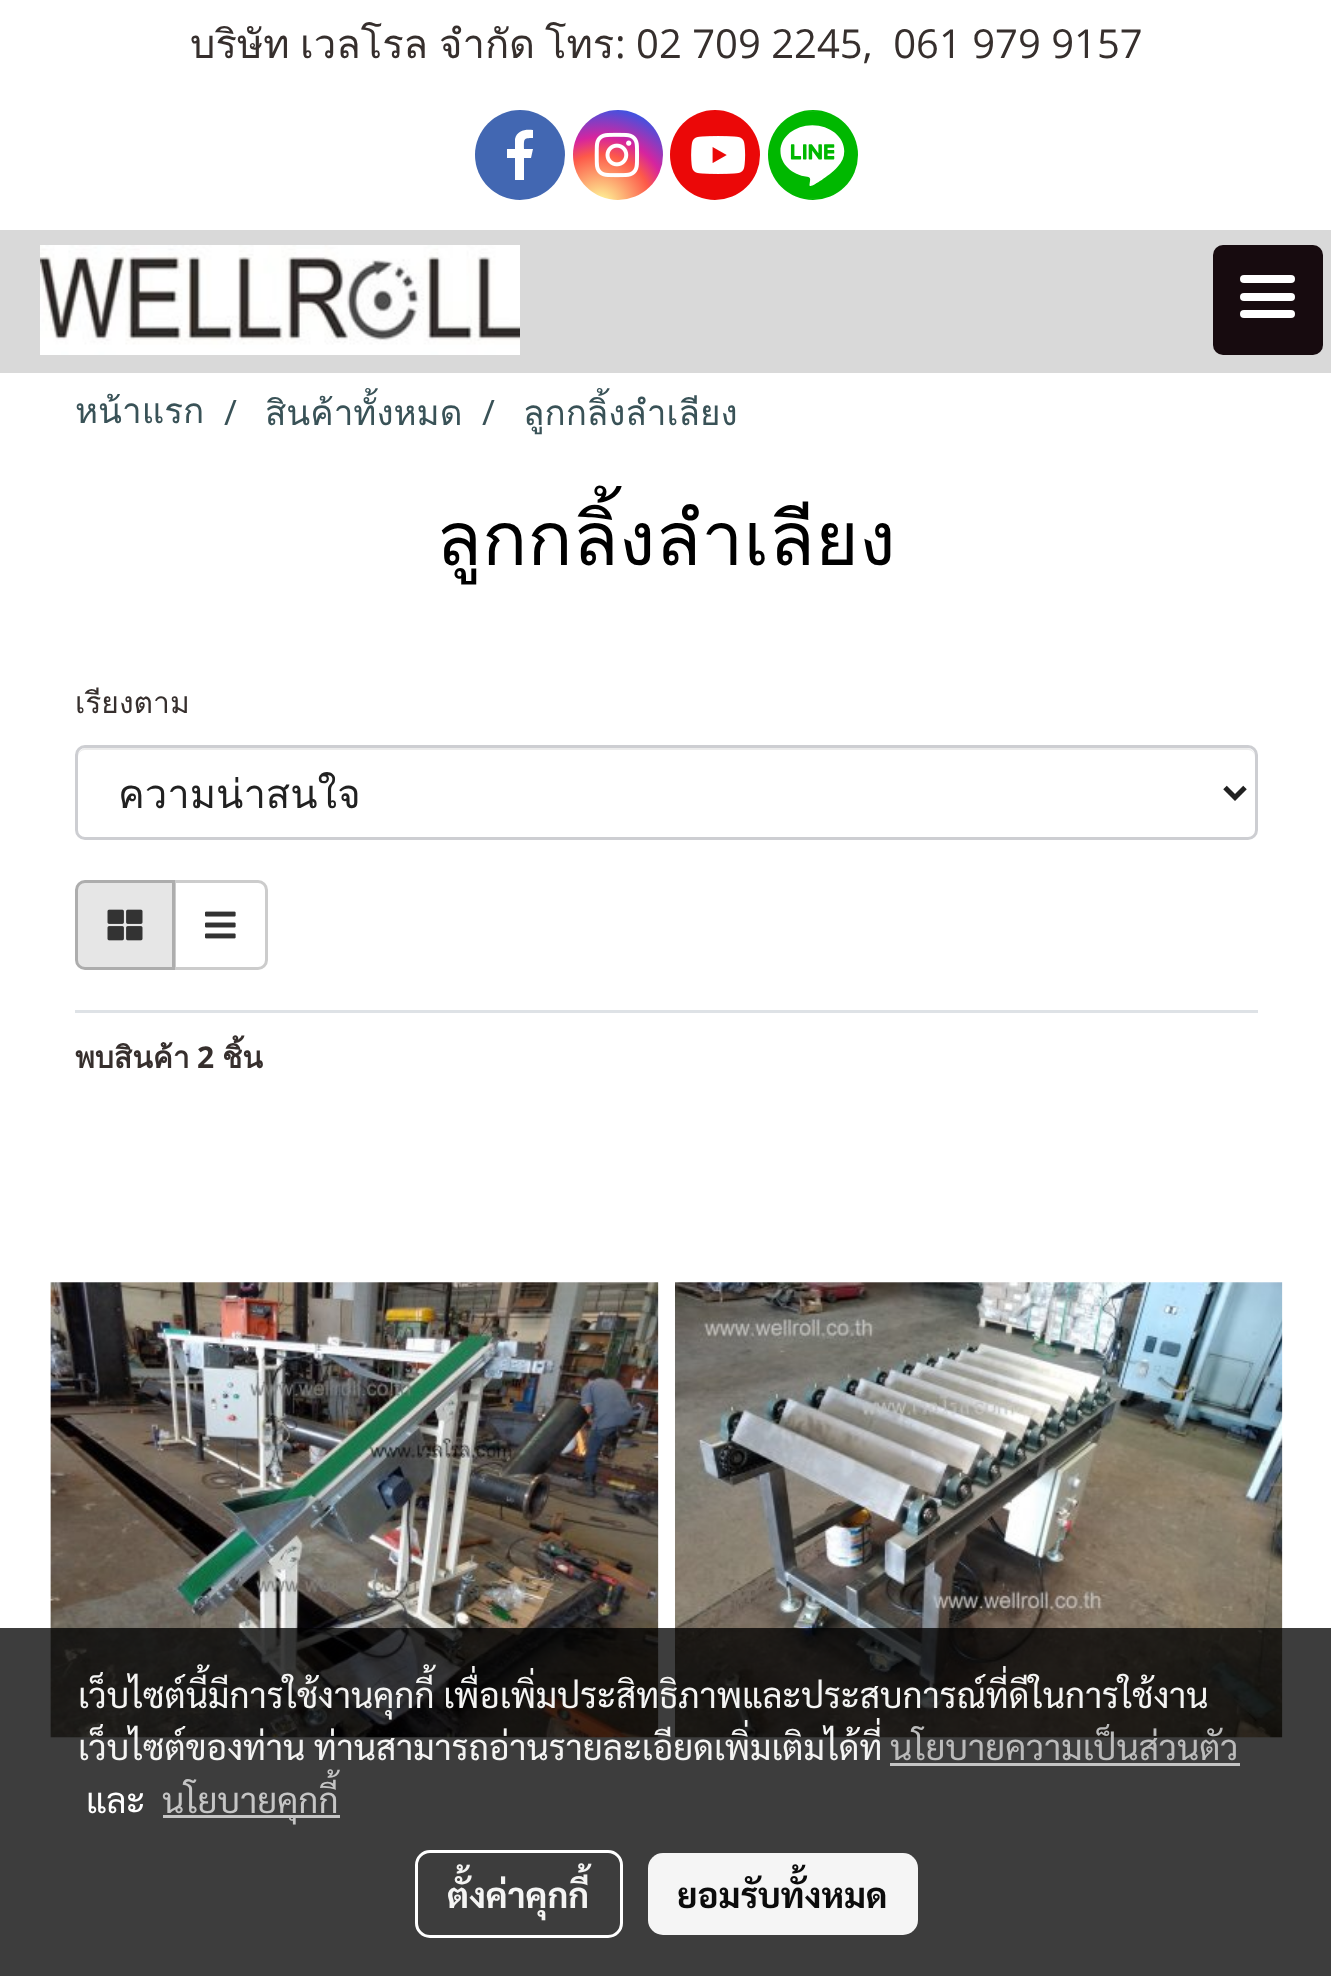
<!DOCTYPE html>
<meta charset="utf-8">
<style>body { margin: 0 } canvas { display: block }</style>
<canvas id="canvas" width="1331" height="1976"></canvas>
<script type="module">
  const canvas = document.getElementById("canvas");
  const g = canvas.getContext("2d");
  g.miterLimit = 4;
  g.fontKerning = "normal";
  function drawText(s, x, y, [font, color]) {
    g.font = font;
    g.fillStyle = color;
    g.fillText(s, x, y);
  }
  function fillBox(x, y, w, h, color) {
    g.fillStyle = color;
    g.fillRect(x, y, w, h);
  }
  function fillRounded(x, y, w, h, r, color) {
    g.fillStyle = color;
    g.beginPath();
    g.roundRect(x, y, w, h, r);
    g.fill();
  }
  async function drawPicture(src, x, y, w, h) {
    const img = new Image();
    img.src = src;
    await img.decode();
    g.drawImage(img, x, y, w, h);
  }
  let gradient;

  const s1 = ["40px Loma", "#362F2D"];
  const s2 = ["40px Open Sans", "#362F2D"];
  const s3 = ["35px Loma", "#395257"];
  const s4 = ["35px Open Sans", "#395257"];
  const s5 = ["75px Loma", "#000000"];
  const s6 = ["30px Loma", "#362F2D"];
  const s7 = ["40px Loma", "#212121"];
  const s8 = ["bold 30px Loma", "#362F2D"];
  const s9 = ["bold 30px Open Sans", "#362F2D"];
  const s10 = ["35px Sarabun", "#F4F4F3"];
  const s11 = ["35px Sarabun", "#BBBBBB"];
  const s12 = ["35px Sarabun", "#FFFFFF"];
  const s13 = ["35px Sarabun", "#C5C5C5"];
  const s14 = ["bold 35px Sarabun", "#F4F4F3"];
  const s15 = ["bold 35px Sarabun", "#0C0C0C"];

  fillBox(0, 0, 1331, 1976, "#FFFFFF");
  fillBox(0, 230, 1331, 143, "#D9D9D9");
  drawText("บริษัท", 190, 58, s1);
  drawText("เวลโรล", 300, 58, s1);
  drawText("จำกัด", 439, 58, s1);
  drawText("โทร", 545, 58, s1);
  drawText(": 02 709 2245,  061 979 9157", 615, 58, s2);
  g.fillStyle = "#4267B2";
  g.beginPath();
  g.arc(520, 155, 45, 0, Math.PI * 2);
  g.fill();
  g.fillStyle = "#FFFFFF";
  g.beginPath();
  g.moveTo(515, 180);
  g.lineTo(515, 158);
  g.lineTo(507, 158);
  g.lineTo(507, 149);
  g.lineTo(515, 149);
  g.lineTo(515, 139);
  g.bezierCurveTo(517, 130, 526, 129, 533, 130);
  g.lineTo(533, 138);
  g.bezierCurveTo(523, 138, 524, 139, 524, 149);
  g.lineTo(533, 149);
  g.lineTo(531, 158);
  g.lineTo(524, 158);
  g.lineTo(524, 180);
  g.fill();
  gradient = g.createRadialGradient(600, 206, 0, 600, 206, 115);
  gradient.addColorStop(0, "#FDF497");
  gradient.addColorStop(0.05, "#FDF497");
  gradient.addColorStop(0.45, "#FD5949");
  gradient.addColorStop(0.6, "#D6249F");
  gradient.addColorStop(0.9, "#285AEB");
  g.fillStyle = gradient;
  g.beginPath();
  g.arc(618, 155, 45, 0, Math.PI * 2);
  g.fill();
  await drawPicture("pic1.png", 594, 132, 46, 46);
  g.fillStyle = "#EB0808";
  g.beginPath();
  g.arc(715, 155, 45, 0, Math.PI * 2);
  g.fill();
  await drawPicture("pic2.png", 691, 136, 55, 38);
  g.fillStyle = "#00B800";
  g.beginPath();
  g.arc(813, 155, 45, 0, Math.PI * 2);
  g.fill();
  await drawPicture("pic3.png", 780, 111, 65, 88);
  await drawPicture("pic4.png", 40, 245, 480, 110);
  fillRounded(1213, 245, 110, 110, 10, "#170B0F");
  fillRounded(1240, 293, 55, 8, 4, "#FFFFFF");
  fillRounded(1240, 275, 55, 8, 4, "#FFFFFF");
  fillRounded(1240, 310, 55, 8, 4, "#FFFFFF");
  drawText("หน้าแรก", 75, 423, s3);
  drawText("/", 224, 425, s4);
  drawText("สินค้าทั้งหมด", 265, 425, s3);
  drawText("/", 482, 425, s4);
  drawText("ลูกกลิ้งลำเลียง", 523, 425, s3);
  drawText("ลูกกลิ้งลำเลียง", 436, 565, s5);
  drawText("เรียงตาม", 75, 713, s6);
  g.fillStyle = "#ECECEC";
  g.beginPath();
  g.moveTo(85, 750);
  g.lineTo(1248, 750);
  g.bezierCurveTo(1252, 750, 1255, 753, 1255, 758);
  g.lineTo(1255, 756);
  g.bezierCurveTo(1255, 752, 1251, 748, 1247, 748);
  g.lineTo(86, 748);
  g.bezierCurveTo(82, 748, 78, 752, 78, 756);
  g.lineTo(78, 758);
  g.bezierCurveTo(78, 753, 81, 750, 85, 750);
  g.closePath();
  g.fill();
  g.beginPath();
  g.roundRect(76.5, 746.5, 1180, 92, 8.5);
  g.strokeStyle = "#CDCED2";
  g.lineWidth = 3;
  g.stroke();
  g.beginPath();
  g.moveTo(1225, 787.5);
  g.lineTo(1235, 797.5);
  g.lineTo(1245, 787.5);
  g.strokeStyle = "#212121";
  g.lineWidth = 5;
  g.stroke();
  drawText("ความน่าสนใจ", 118, 808, s7);
  g.beginPath();
  g.roundRect(174.5, 881.5, 92, 87, [0, 8.5, 8.5, 0]);
  g.strokeStyle = "#CCCCCC";
  g.lineWidth = 3;
  g.stroke();
  g.fillStyle = "#E6E6E6";
  g.beginPath();
  g.roundRect(76.5, 881.5, 97, 87, [8.5, 0, 0, 8.5]);
  g.fill();
  g.strokeStyle = "#ADADAD";
  g.stroke();
  await drawPicture("pic5.png", 107, 909, 36, 32);
  await drawPicture("pic6.png", 205, 911, 31, 28);
  fillBox(75, 1010, 1183, 3, "#DEE2E6");
  drawText("พบสินค้า", 75, 1068, s8);
  drawText("2", 197, 1068, s9);
  drawText("ชิ้น", 222, 1068, s8);
  await drawPicture("pic7.png", 50, 1282, 609, 456);
  await drawPicture("pic8.png", 675, 1282, 608, 456);
  fillBox(0, 1628, 1331, 348, "rgba(0, 0, 0, 0.76)");
  drawText("เว็บไซต์นี้มีการใช้งานคุกกี้ เพื่อเพิ่มประสิทธิภาพและประสบการณ์ที่ดีในการใช้งาน", 78, 1708, s10);
  drawText("เว็บไซต์ของท่าน ท่านสามารถอ่านรายละเอียดเพิ่มเติมได้ที่", 78, 1760, s10);
  drawText("นโยบายความเป็นส่วนตัว", 890, 1760, s11);
  fillBox(890, 1763, 350, 3, "#C5C5C5");
  drawText("และ", 86, 1813, s12);
  fillBox(163, 1815, 177, 3, "#C5C5C5");
  drawText("นโยบายคุกกี้", 162, 1813, s13);
  g.beginPath();
  g.roundRect(416.5, 1851.5, 205, 85, 13.5);
  g.strokeStyle = "#FFFFFF";
  g.stroke();
  drawText("ตั้งค่าคุกกี้", 447, 1908, s14);
  fillRounded(648, 1853, 270, 82, 15, "rgba(255, 255, 255, 0.95)");
  drawText("ยอมรับทั้งหมด", 677, 1908, s15);
</script>
